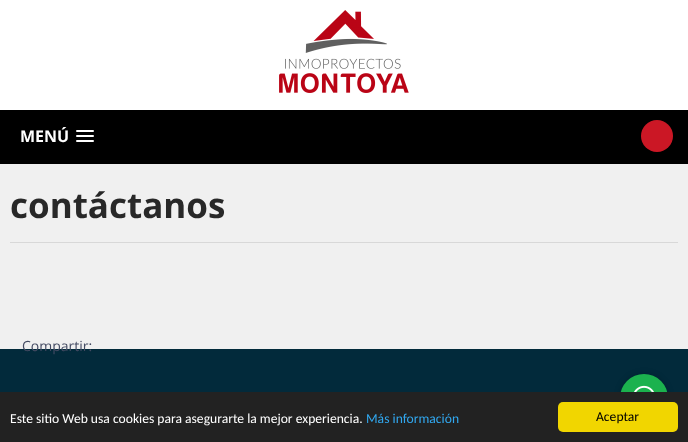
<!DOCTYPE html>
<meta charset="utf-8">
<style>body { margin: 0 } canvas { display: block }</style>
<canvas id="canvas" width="688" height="442"></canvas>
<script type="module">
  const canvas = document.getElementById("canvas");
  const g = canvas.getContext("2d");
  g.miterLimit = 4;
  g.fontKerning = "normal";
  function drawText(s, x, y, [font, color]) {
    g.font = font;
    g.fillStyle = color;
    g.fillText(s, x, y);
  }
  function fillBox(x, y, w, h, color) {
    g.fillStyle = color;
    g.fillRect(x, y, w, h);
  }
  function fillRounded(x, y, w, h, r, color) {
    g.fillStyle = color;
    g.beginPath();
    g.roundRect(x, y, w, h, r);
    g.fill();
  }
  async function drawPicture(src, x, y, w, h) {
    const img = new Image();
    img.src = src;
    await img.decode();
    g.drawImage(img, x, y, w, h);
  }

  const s1 = ["bold 16px Open Sans", "#FFFFFF"];
  const s2 = ["bold 35px Open Sans", "#282828"];
  const s3 = ["14px Open Sans", "#434A62"];
  const s4 = ["13.6px Carlito", "#FFFFFF"];
  const s5 = ["13.6px Carlito", "#31A8F0"];
  const s6 = ["13.6px Carlito", "#000000"];

  fillBox(0, 0, 688, 442, "#F0F0F0");
  fillBox(0, 0, 688, 110, "#FFFFFF");
  await drawPicture("pic1.png", 279, 10, 130, 83);
  fillBox(0, 110, 688, 54, "#000000");
  drawText("MENÚ", 20, 142, s1);
  fillRounded(76, 130, 18, 2, 1, "#FFFFFF");
  fillRounded(76, 135, 18, 2, 1, "#FFFFFF");
  fillRounded(76, 140, 18, 2, 1, "#FFFFFF");
  g.fillStyle = "#CB1725";
  g.beginPath();
  g.arc(657, 136, 16, 0, Math.PI * 2);
  g.fill();
  drawText("contáctanos", 10, 218, s2);
  fillBox(10, 242, 668, 1, "#D8D8D8");
  fillBox(0, 349, 688, 43, "#022A3B");
  drawText("Compartir:", 22, 351, s3);
  g.fillStyle = "rgba(0, 0, 0, 0.2)";
  g.filter = "blur(3px)";
  g.beginPath();
  g.roundRect(620, 374, 48, 48, 24);
  g.fill();
  g.filter = "none";
  g.fillStyle = "#1BB24E";
  g.beginPath();
  g.arc(644, 398, 24, 0, Math.PI * 2);
  g.fill();
  fillBox(0, 392, 688, 50, "#222222");
  drawText("Este sitio Web usa cookies para asegurarte la mejor experiencia.", 10, 423, s4);
  drawText("Más información", 366, 423, s5);
  fillRounded(558, 402, 120, 30, 5, "#F1D600");
  drawText("Aceptar", 596, 421, s6);
  await drawPicture("pic2.png", 634, 385, 20, 7);
</script>
